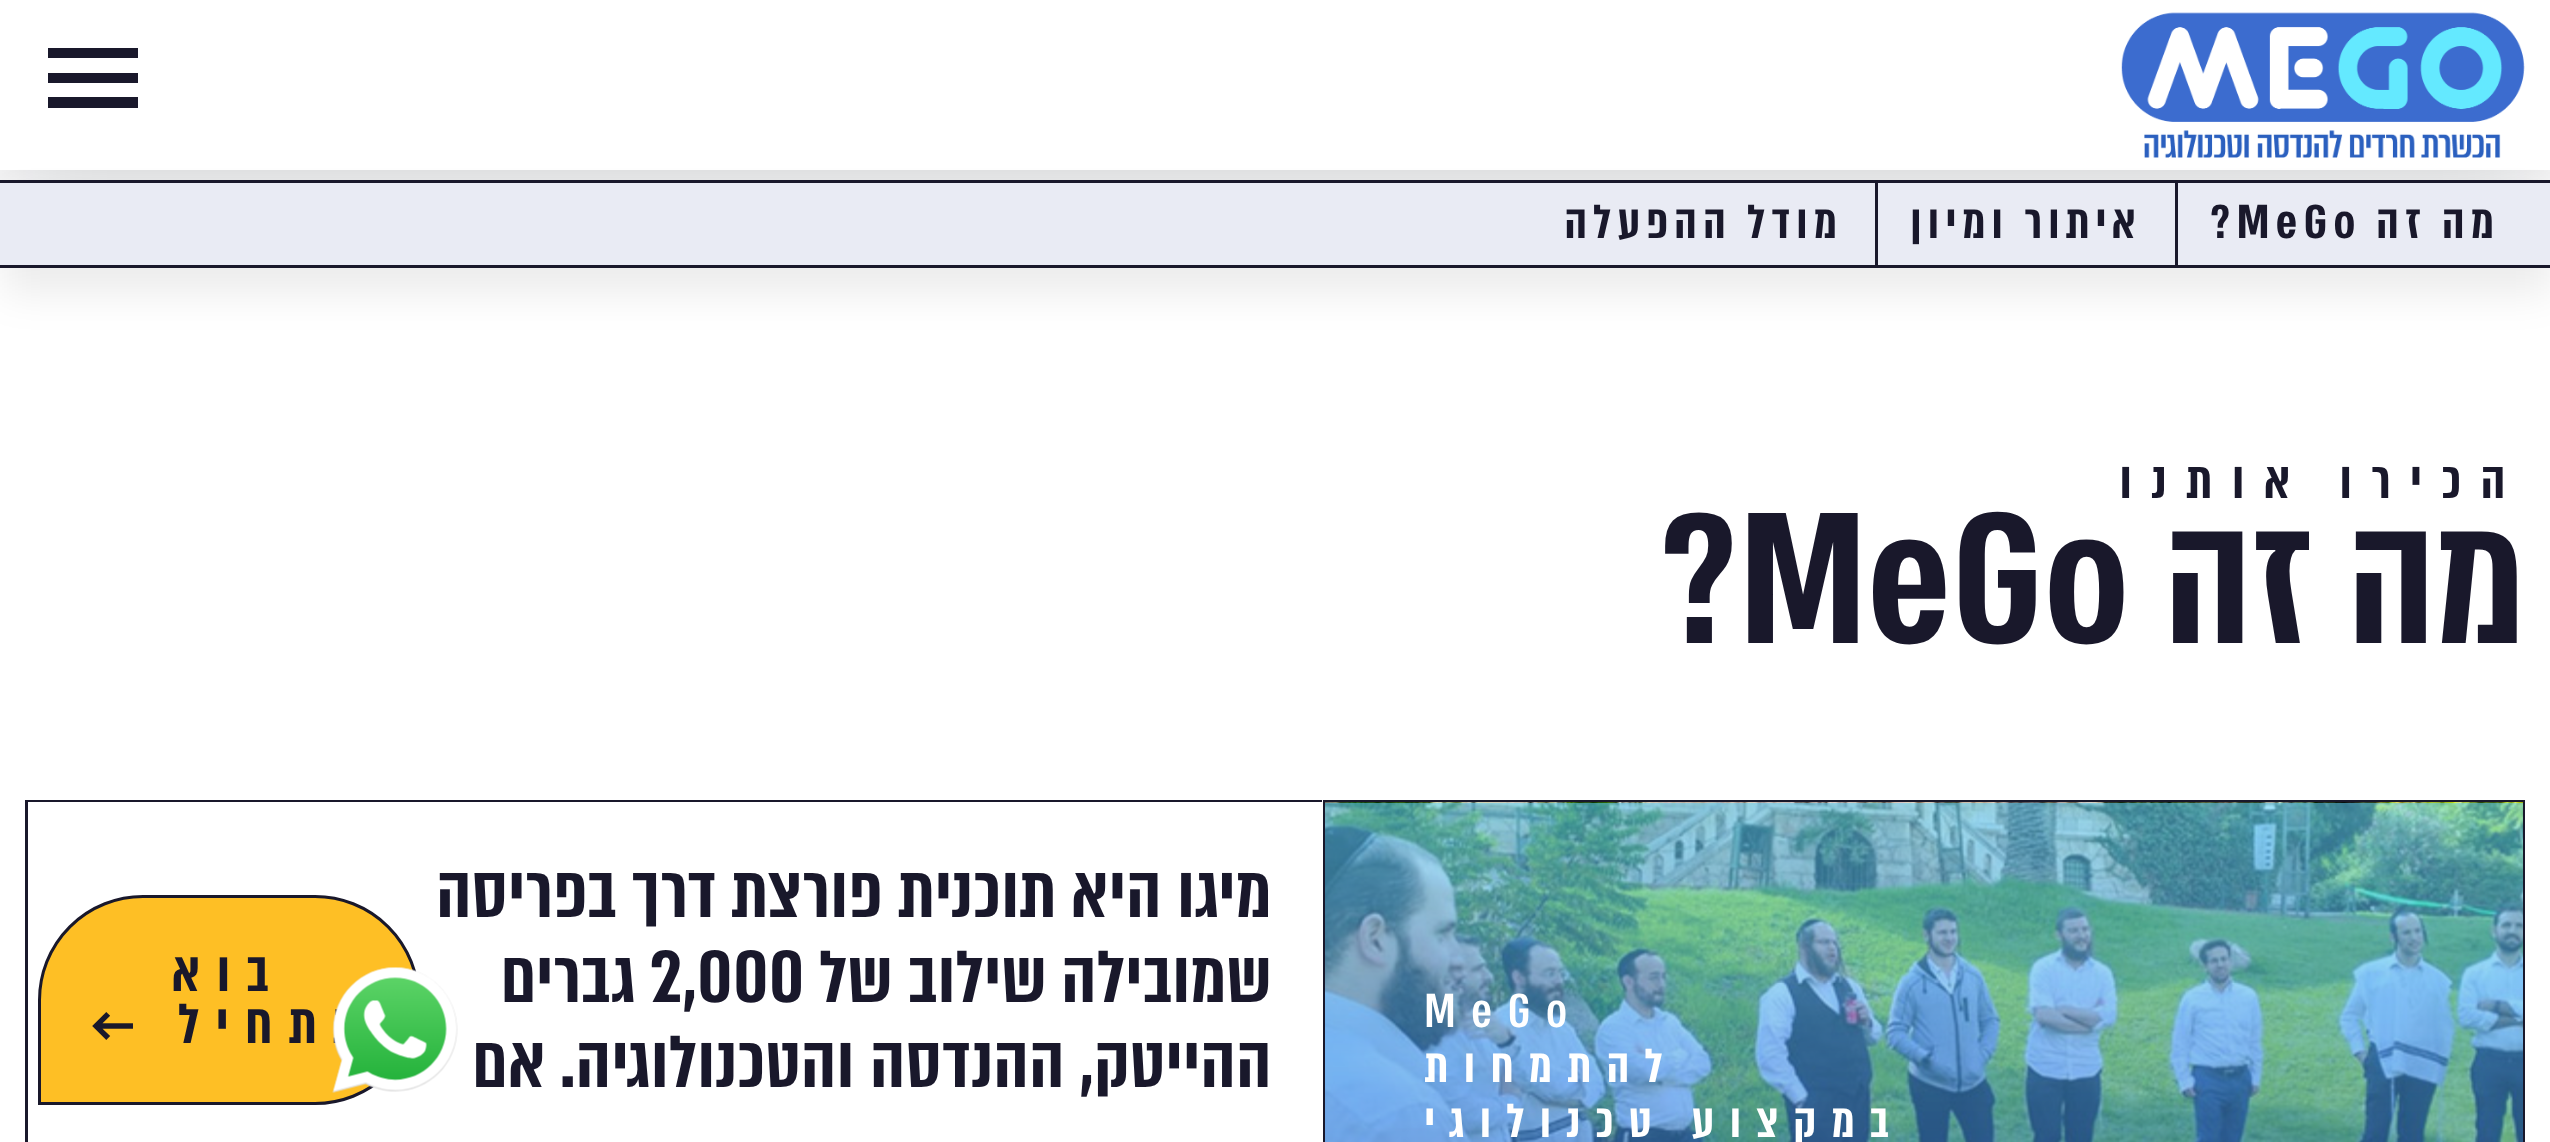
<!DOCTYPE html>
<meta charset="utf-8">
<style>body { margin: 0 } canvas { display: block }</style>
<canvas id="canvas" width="2550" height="1142"></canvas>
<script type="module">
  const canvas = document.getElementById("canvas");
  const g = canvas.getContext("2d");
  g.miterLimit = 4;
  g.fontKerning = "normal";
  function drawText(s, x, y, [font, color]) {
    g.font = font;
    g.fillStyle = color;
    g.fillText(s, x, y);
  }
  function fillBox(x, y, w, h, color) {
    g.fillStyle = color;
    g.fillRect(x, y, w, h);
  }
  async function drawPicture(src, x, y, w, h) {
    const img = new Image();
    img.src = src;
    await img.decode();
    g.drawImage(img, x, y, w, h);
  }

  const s1 = ["600 55px 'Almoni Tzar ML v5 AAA'", "#19182B"];
  const s2 = ["600 60px 'Almoni Tzar ML v5 AAA'", "#19182B"];
  const s3 = ["600 215px 'Almoni Tzar ML v5 AAA'", "#19182B"];
  const s4 = ["500 55px 'Almoni Tzar ML v5 AAA'", "#FFFFFF"];
  const s5 = ["600 55px 'Almoni Tzar ML v5 AAA'", "#FFFFFF"];
  const s6 = ["600 85px 'Almoni Tzar ML v5 AAA'", "#19182B"];
  const s7 = ["600 65px 'Almoni Tzar ML v5 AAA'", "#19182B"];

  fillBox(0, 0, 2550, 1142, "#FFFFFF");
  g.save();
  g.beginPath();
  g.rect(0, 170, 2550, 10);
  g.clip();
  g.fillStyle = "rgba(5, 8, 21, 0.24)";
  g.filter = "blur(50px)";
  g.beginPath();
  g.rect(0, 0, 2550, 170);
  g.fill();
  g.filter = "none";
  g.restore();
  await drawPicture("pic3.png", 2121, 12, 404, 146);
  g.fillStyle = "rgba(0, 0, 0, 0.08)";
  g.filter = "blur(20px)";
  g.beginPath();
  g.rect(3, 205, 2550, 88);
  g.fill();
  g.filter = "none";
  fillBox(0, 183, 2550, 82, "#E9EBF4");
  fillBox(0, 180, 2550, 3, "#19182B");
  fillBox(0, 265, 2550, 3, "#19182B");
  g.letterSpacing = "6.25px";
  g.direction = "rtl";
  drawText("מה זה", 2500, 238, s1);
  g.direction = "ltr";
  drawText("?MeGo", 2210, 238, s1);
  fillBox(2175, 183, 3, 82, "#19182B");
  g.direction = "rtl";
  drawText("איתור ומיון", 2142, 238, s1);
  fillBox(1875, 183, 3, 82, "#19182B");
  drawText("מודל ההפעלה", 1843, 238, s1);
  g.letterSpacing = "19.75px";
  drawText("הכירו אותנו", 2525, 498, s2);
  g.letterSpacing = "0px";
  drawText("מה זה", 2525, 643, s3);
  g.direction = "ltr";
  drawText("?MeGo", 1659, 643, s3);
  g.strokeStyle = "#19182B";
  g.lineWidth = 3;
  g.strokeRect(1324.5, 801.5, 1199, 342);
  await drawPicture("pic1.png", 1325, 802, 1198, 340);
  g.letterSpacing = "15.5px";
  drawText("MeGo", 1424, 1027, s4);
  g.direction = "rtl";
  drawText("להתמחות", 1678, 1082, s5);
  drawText("במקצוע טכנולוגי", 1904, 1137, s5);
  g.fillStyle = "#19182B";
  g.beginPath();
  g.moveTo(25, 800);
  g.lineTo(1322, 800);
  g.lineTo(1322, 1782);
  g.lineTo(125, 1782);
  g.bezierCurveTo(70, 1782, 25, 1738, 25, 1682);
  g.closePath();
  g.moveTo(28, 802);
  g.lineTo(1322, 802);
  g.lineTo(1322, 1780);
  g.lineTo(125, 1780);
  g.bezierCurveTo(71, 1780, 28, 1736, 28, 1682);
  g.closePath();
  g.fill("evenodd");
  g.letterSpacing = "0.75px";
  drawText("מיגו", 1272, 917, s6);
  drawText("היא", 1162, 917, s6);
  drawText("תוכנית", 1057, 917, s6);
  drawText("פורצת", 883, 917, s6);
  drawText("דרך", 717, 917, s6);
  drawText("בפריסה", 617, 917, s6);
  drawText("שמובילה", 1272, 1002, s6);
  drawText("שילוב", 1047, 1002, s6);
  drawText("של", 893, 1002, s6);
  g.direction = "ltr";
  drawText("2,000", 650, 1002, s6);
  g.direction = "rtl";
  drawText("גברים", 636, 1002, s6);
  drawText("ההייטק, ההנדסה", 1272, 1087, s6);
  drawText("והטכנולוגיה.", 855, 1087, s6);
  drawText("אם", 546, 1087, s6);
  g.fillStyle = "#FEBF25";
  g.beginPath();
  g.roundRect(39.5, 896.5, 379, 207, [103.5, 103.5, 103.5, 0]);
  g.fill();
  g.stroke();
  g.letterSpacing = "16.5px";
  drawText("נתחיל ←", 366, 1043, s7);
  await drawPicture("pic2.png", 332, 967, 126, 126);
  fillBox(48, 48, 90, 10, "#19182B");
  fillBox(48, 73, 90, 10, "#19182B");
  fillBox(48, 97, 90, 11, "#19182B");
  drawText("בוא", 285, 991, s7);
</script>
